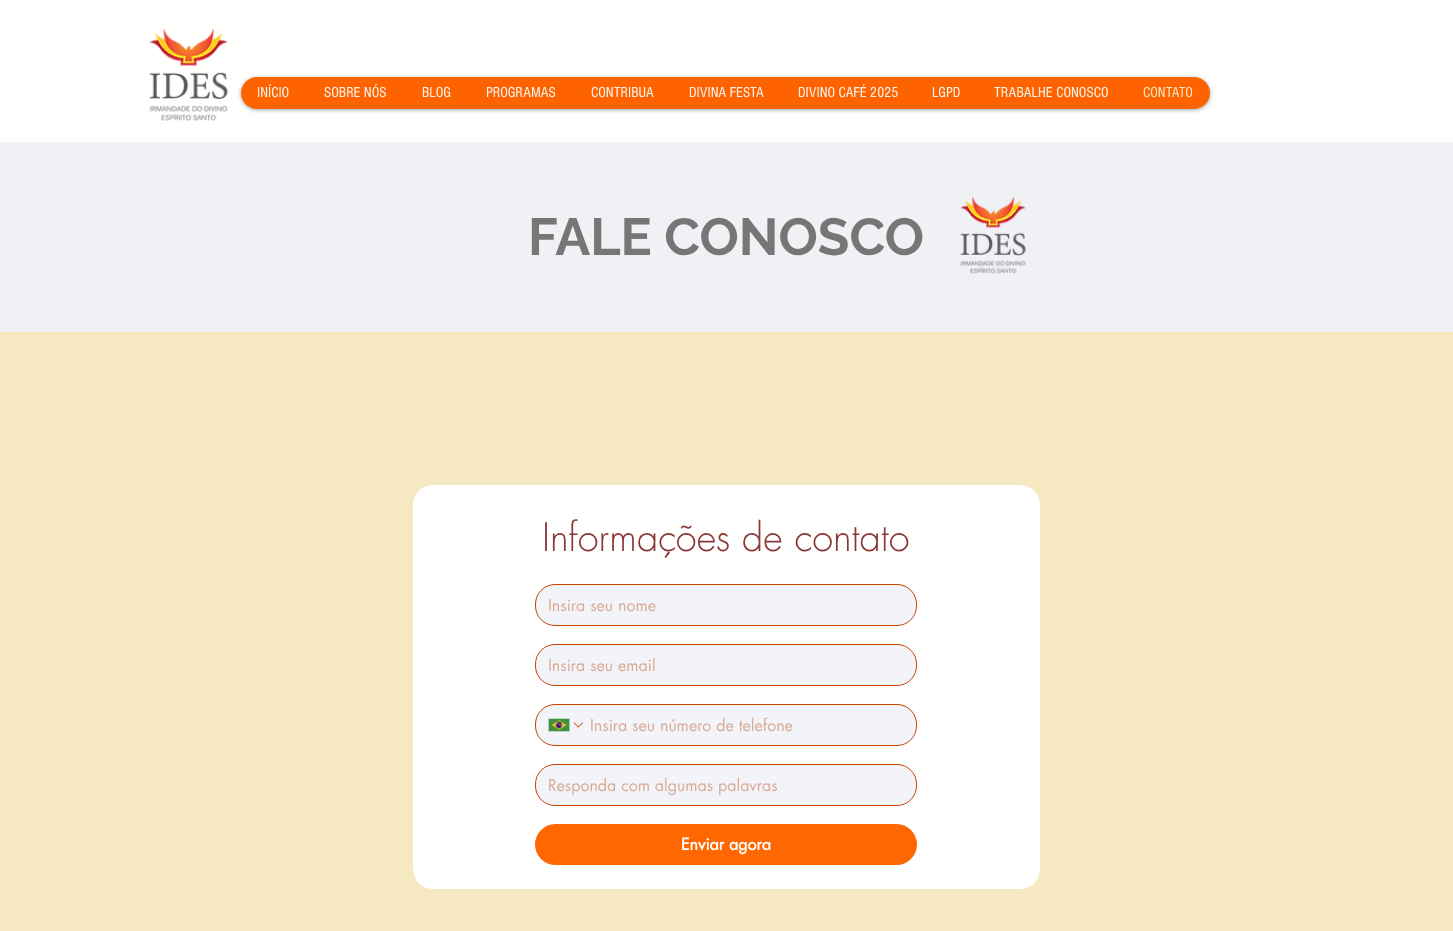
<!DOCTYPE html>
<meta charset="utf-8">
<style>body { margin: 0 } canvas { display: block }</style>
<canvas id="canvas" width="1453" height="931"></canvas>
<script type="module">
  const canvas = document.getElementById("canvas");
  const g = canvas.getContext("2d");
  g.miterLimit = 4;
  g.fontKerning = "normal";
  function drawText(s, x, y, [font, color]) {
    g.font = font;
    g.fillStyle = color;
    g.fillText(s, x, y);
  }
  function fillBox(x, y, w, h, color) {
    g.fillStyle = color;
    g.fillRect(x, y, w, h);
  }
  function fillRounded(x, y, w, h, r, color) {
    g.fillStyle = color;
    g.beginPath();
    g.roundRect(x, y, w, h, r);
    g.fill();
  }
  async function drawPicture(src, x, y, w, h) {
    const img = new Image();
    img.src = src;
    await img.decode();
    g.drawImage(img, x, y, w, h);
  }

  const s1 = ["15px 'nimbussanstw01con'", "#F8F5EF"];
  const s2 = ["15px 'nimbussanstw01con'", "#F6E9C2"];
  const s3 = ["bold 52px Raleway", "#757776"];
  const s4 = ["300 38px futura", "#8B3737"];
  const s5 = ["16px futura", "#DAAB93"];
  const s6 = ["bold 16px futura", "#FFFFFF"];

  fillBox(0, 0, 1453, 931, "#F6E9C2");
  fillBox(0, 0, 1453, 142, "#FFFFFE");
  await drawPicture("pic1.png", 149, 28, 79, 93);
  g.fillStyle = "rgba(79, 110, 119, 0.58)";
  g.filter = "blur(2px)";
  g.beginPath();
  g.roundRect(241, 78, 969, 32, 16);
  g.fill();
  g.filter = "none";
  fillRounded(241, 77, 969, 32, 16, "#FE6300");
  drawText("INÍCIO", 257, 97, s1);
  drawText("SOBRE NÓS", 324, 97, s1);
  drawText("BLOG", 422, 97, s1);
  drawText("PROGRAMAS", 486, 97, s1);
  drawText("CONTRIBUA", 591, 97, s1);
  drawText("DIVINA FESTA", 689, 97, s1);
  drawText("DIVINO CAFÉ 2025", 798, 97, s1);
  drawText("LGPD", 932, 97, s1);
  drawText("TRABALHE CONOSCO", 994, 97, s1);
  drawText("CONTATO", 1143, 97, s2);
  fillBox(0, 142, 1453, 190, "#F0F1F5");
  drawText("FALE CONOSCO", 528, 255, s3);
  await drawPicture("pic2.png", 960, 196, 66, 78);
  fillRounded(413, 485, 627, 404, 20, "#FFFFFF");
  drawText("Informações de contato", 542, 551, s4);
  g.fillStyle = "#F2F4FA";
  g.beginPath();
  g.roundRect(535.5, 584.5, 381, 41, 19.5);
  g.fill();
  g.strokeStyle = "#C74300";
  g.stroke();
  drawText("Insira seu nome", 548, 611, s5);
  g.fillStyle = "#F2F4FA";
  g.beginPath();
  g.roundRect(535.5, 644.5, 381, 41, 19.5);
  g.fill();
  g.stroke();
  drawText("Insira seu email", 548, 671, s5);
  g.fillStyle = "#F2F4FA";
  g.beginPath();
  g.roundRect(535.5, 704.5, 381, 41, 19.5);
  g.fill();
  g.stroke();
  await drawPicture("pic3.png", 548, 718, 22, 14);
  await drawPicture("pic4.png", 573, 722, 10, 6);
  drawText("Insira seu número de telefone", 590, 731, s5);
  g.fillStyle = "#F2F4FA";
  g.beginPath();
  g.roundRect(535.5, 764.5, 381, 41, 19.5);
  g.fill();
  g.stroke();
  drawText("Responda com algumas palavras", 548, 791, s5);
  fillRounded(535, 824, 382, 41, 20.5, "#FF6700");
  drawText("Enviar agora", 681, 850, s6);
</script>
